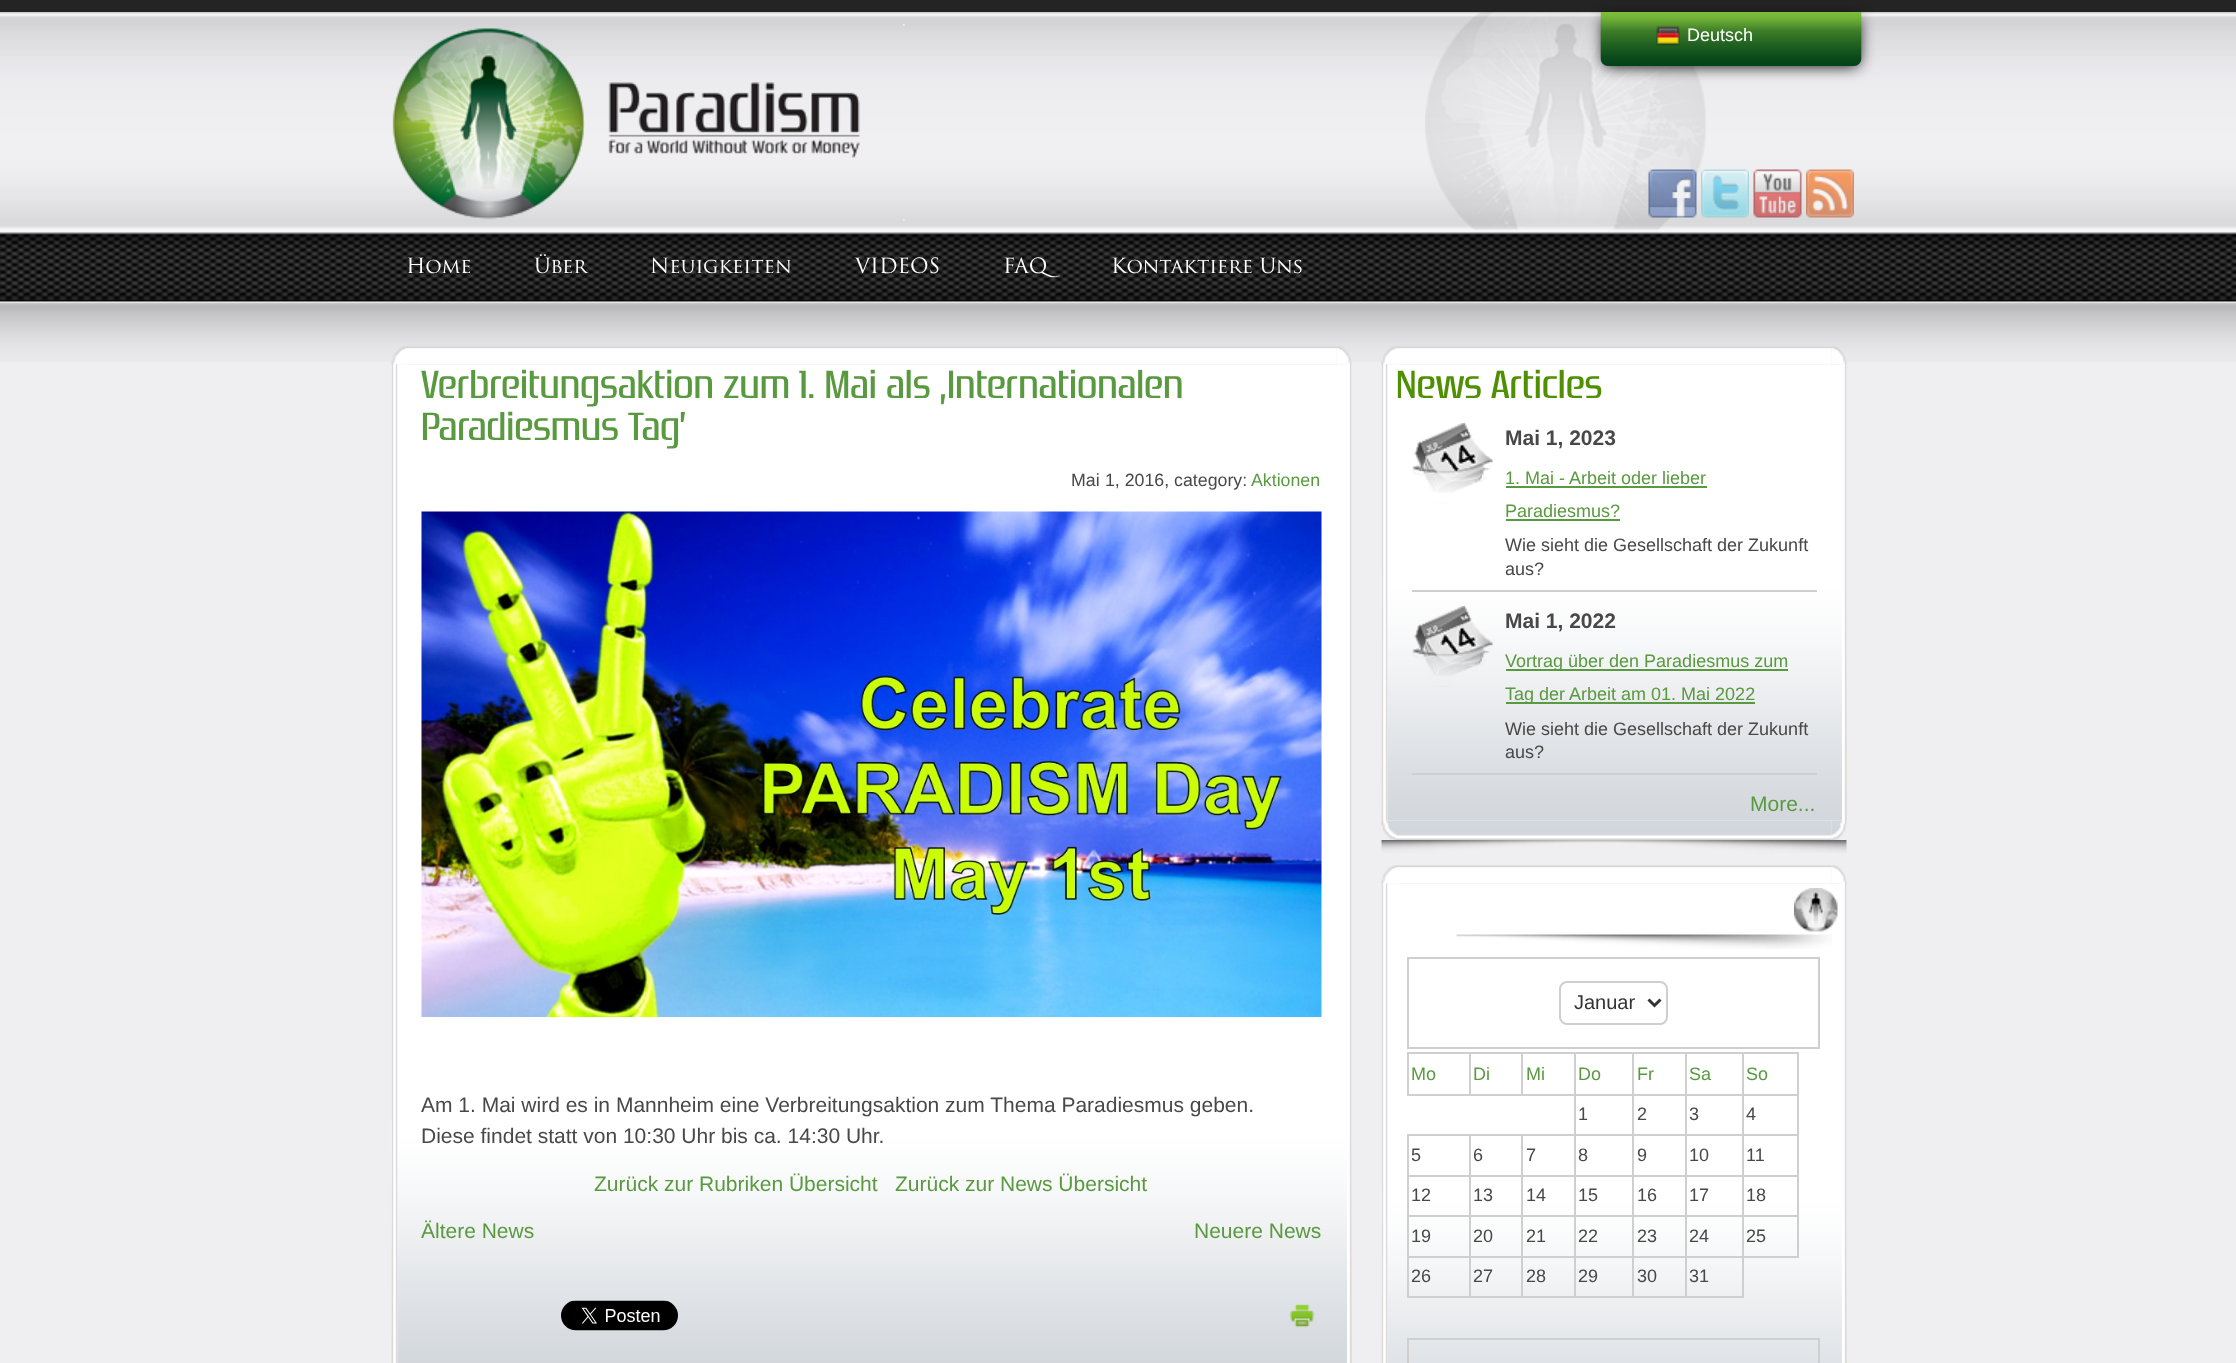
<!DOCTYPE html>
<meta charset="utf-8">
<style>body { margin: 0 } canvas { display: block }</style>
<canvas id="canvas" width="2236" height="1363"></canvas>
<script type="module">
  const canvas = document.getElementById("canvas");
  const g = canvas.getContext("2d");
  g.miterLimit = 4;
  g.fontKerning = "normal";
  function drawText(s, x, y, [font, color]) {
    g.font = font;
    g.fillStyle = color;
    g.fillText(s, x, y);
  }
  function fillBox(x, y, w, h, color) {
    g.fillStyle = color;
    g.fillRect(x, y, w, h);
  }
  async function drawPicture(src, x, y, w, h) {
    const img = new Image();
    img.src = src;
    await img.decode();
    g.drawImage(img, x, y, w, h);
  }

  const s1 = ["18px Liberation Sans", "#FFFFFF"];
  const s2 = ["24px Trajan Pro", "#FFFFFF"];
  const s3 = ["39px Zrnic", "#59993F"];
  const s4 = ["17.75px Liberation Sans", "#494848"];
  const s5 = ["17.75px Liberation Sans", "#59993F"];
  const s6 = ["21px Liberation Sans", "#494848"];
  const s7 = ["21px Liberation Sans", "#59993F"];
  const s8 = ["39px Zrnic", "#4F9002"];
  const s9 = ["bold 21px Liberation Sans", "#494848"];
  const s10 = ["18px Liberation Sans", "#59993F"];
  const s11 = ["18px Liberation Sans", "#494848"];
  const s12 = ["20px Liberation Sans", "#333333"];

  fillBox(0, 0, 2236, 1363, "#242424");
  fillBox(0, 229, 2236, 4, "#F6F6F8");
  await drawPicture("pic1.png", 0, 12, 2236, 217);
  await drawPicture("pic2.png", 1425, 12, 281, 218);
  await drawPicture("pic3.png", 392, 24, 513, 197);
  g.fillStyle = "#000000";
  g.filter = "blur(7.5px)";
  g.beginPath();
  g.roundRect(1604, 18, 255, 48, 5);
  g.fill();
  g.filter = "none";
  await drawPicture("pic4.png", 1600, 12, 262, 54);
  await drawPicture("pic5.png", 1656, 25, 24, 21);
  drawText("Deutsch", 1687, 41, s1);
  await drawPicture("pic6.png", 1648, 169, 49, 49);
  await drawPicture("pic7.png", 1701, 169, 48, 49);
  await drawPicture("pic8.png", 1753, 169, 49, 49);
  await drawPicture("pic9.png", 1806, 169, 48, 49);
  await drawPicture("pic10.png", 0, 232, 2236, 70);
  drawText("Home", 406, 273, s2);
  drawText("Über", 534, 273, s2);
  drawText("Neuigkeiten", 650, 273, s2);
  drawText("VIDEOS", 855, 273, s2);
  drawText("FAQ", 1003, 273, s2);
  drawText("Kontaktiere Uns", 1111, 273, s2);
  fillBox(0, 362, 2236, 1001, "#EFEFF2");
  await drawPicture("pic11.png", 0, 301, 2236, 61);
  await drawPicture("pic12.png", 391, 346, 17, 19);
  await drawPicture("pic13.png", 1336, 346, 16, 19);
  await drawPicture("pic14.png", 407, 346, 930, 19);
  fillBox(397, 365, 955, 998, "#FFFFFF");
  await drawPicture("pic15.png", 391, 1119, 961, 244);
  await drawPicture("pic16.png", 391, 364, 7, 999);
  await drawPicture("pic17.png", 1347, 364, 5, 999);
  drawText("Verbreitungsaktion zum 1. Mai als ‚Internationalen", 421, 398, s3);
  drawText("Paradiesmus Tag’", 421, 440, s3);
  drawText("Mai", 1071, 486, s4);
  drawText("1, 2016, category:", 1105, 486, s4);
  drawText("Aktionen", 1251, 486, s5);
  await drawPicture("pic18.png", 421, 511, 901, 506);
  drawText("Am 1. Mai wird es in Mannheim eine Verbreitungsaktion zum Thema Paradiesmus geben.", 421, 1112, s6);
  drawText("Diese findet statt von 10:30 Uhr bis ca. 14:30 Uhr.", 421, 1143, s6);
  drawText("Zurück zur Rubriken Übersicht", 594, 1191, s7);
  drawText("Zurück zur News Übersicht", 895, 1191, s7);
  drawText("Ältere News", 421, 1238, s7);
  drawText("Neuere News", 1194, 1238, s7);
  await drawPicture("pic19.png", 561, 1300, 117, 31);
  await drawPicture("pic20.png", 1290, 1304, 24, 24);
  await drawPicture("pic21.png", 1381, 840, 466, 13);
  await drawPicture("pic12.png", 1381, 346, 17, 19);
  await drawPicture("pic22.png", 1831, 346, 16, 19);
  await drawPicture("pic23.png", 1397, 346, 435, 19);
  fillBox(1382, 365, 465, 456, "#FFFFFF");
  await drawPicture("pic24.png", 1381, 570, 466, 251);
  await drawPicture("pic25.png", 1381, 364, 7, 457);
  await drawPicture("pic26.png", 1842, 364, 5, 457);
  drawText("News Articles", 1396, 398, s8);
  await drawPicture("pic27.png", 1412, 423, 81, 81);
  fillBox(1412, 590, 405, 2, "#CFCFD0");
  drawText("Mai 1, 2023", 1505, 445, s9);
  drawText("1. Mai - Arbeit oder lieber", 1505, 484, s10);
  fillBox(1506, 486, 201, 2, "#59993F");
  drawText("Paradiesmus?", 1505, 517, s10);
  fillBox(1506, 519, 114, 2, "#59993F");
  drawText("Wie sieht die Gesellschaft der Zukunft", 1505, 551, s11);
  drawText("aus?", 1505, 575, s11);
  await drawPicture("pic28.png", 1412, 606, 81, 81);
  fillBox(1412, 773, 405, 2, "#CFCFD0");
  drawText("Mai 1, 2022", 1505, 628, s9);
  fillBox(1506, 669, 282, 2, "#59993F");
  drawText("Vortrag über den Paradiesmus zum", 1505, 667, s10);
  fillBox(1506, 702, 249, 2, "#59993F");
  drawText("Tag der Arbeit am 01. Mai 2022", 1505, 700, s10);
  drawText("Wie sieht die Gesellschaft der Zukunft", 1505, 735, s11);
  drawText("aus?", 1505, 758, s11);
  drawText("More...", 1750, 811, s7);
  await drawPicture("pic29.png", 1381, 820, 17, 20);
  await drawPicture("pic30.png", 1831, 820, 16, 20);
  await drawPicture("pic31.png", 1396, 820, 436, 20);
  await drawPicture("pic32.png", 1381, 865, 17, 19);
  await drawPicture("pic33.png", 1831, 865, 16, 19);
  await drawPicture("pic34.png", 1397, 865, 435, 19);
  fillBox(1387, 884, 460, 479, "#FFFFFF");
  await drawPicture("pic35.png", 1381, 1185, 466, 178);
  await drawPicture("pic36.png", 1381, 883, 7, 480);
  await drawPicture("pic37.png", 1842, 883, 5, 480);
  await drawPicture("pic38.png", 1456, 934, 376, 15);
  await drawPicture("pic39.png", 1794, 888, 44, 44);
  g.strokeStyle = "#CFCFD0";
  g.lineWidth = 2;
  g.strokeRect(1408, 958, 411, 90);
  g.beginPath();
  g.roundRect(1560, 982, 107, 42, 7);
  g.stroke();
  g.beginPath();
  g.moveTo(1648.5, 999.5);
  g.lineTo(1654.5, 1005.5);
  g.lineTo(1660.5, 999.5);
  g.strokeStyle = "#333333";
  g.lineWidth = 3;
  g.stroke();
  drawText("Januar", 1574, 1009, s12);
  fillBox(1742, 1052, 57, 2, "#CFCFD0");
  fillBox(1742, 1094, 57, 2, "#CFCFD0");
  fillBox(1742, 1134, 57, 2, "#CFCFD0");
  fillBox(1742, 1175, 57, 2, "#CFCFD0");
  fillBox(1742, 1215, 57, 2, "#CFCFD0");
  fillBox(1797, 1215, 2, 42, "#CFCFD0");
  fillBox(1685, 1256, 58, 2, "#CFCFD0");
  fillBox(1742, 1256, 2, 42, "#CFCFD0");
  fillBox(1742, 1256, 57, 2, "#CFCFD0");
  fillBox(1742, 1215, 2, 42, "#CFCFD0");
  fillBox(1685, 1215, 58, 2, "#CFCFD0");
  fillBox(1742, 1175, 2, 42, "#CFCFD0");
  fillBox(1685, 1175, 58, 2, "#CFCFD0");
  fillBox(1742, 1134, 2, 42, "#CFCFD0");
  fillBox(1685, 1134, 58, 2, "#CFCFD0");
  fillBox(1742, 1094, 2, 42, "#CFCFD0");
  fillBox(1685, 1094, 58, 2, "#CFCFD0");
  fillBox(1742, 1052, 2, 43, "#CFCFD0");
  fillBox(1685, 1052, 58, 2, "#CFCFD0");
  fillBox(1685, 1296, 58, 2, "#CFCFD0");
  fillBox(1685, 1256, 2, 42, "#CFCFD0");
  fillBox(1632, 1256, 54, 2, "#CFCFD0");
  fillBox(1685, 1215, 2, 42, "#CFCFD0");
  fillBox(1632, 1215, 54, 2, "#CFCFD0");
  fillBox(1685, 1175, 2, 42, "#CFCFD0");
  fillBox(1632, 1175, 54, 2, "#CFCFD0");
  fillBox(1685, 1134, 2, 42, "#CFCFD0");
  fillBox(1632, 1134, 54, 2, "#CFCFD0");
  fillBox(1685, 1094, 2, 42, "#CFCFD0");
  fillBox(1632, 1094, 54, 2, "#CFCFD0");
  fillBox(1685, 1052, 2, 43, "#CFCFD0");
  fillBox(1632, 1052, 54, 2, "#CFCFD0");
  fillBox(1632, 1296, 54, 2, "#CFCFD0");
  fillBox(1632, 1256, 2, 42, "#CFCFD0");
  fillBox(1574, 1256, 60, 2, "#CFCFD0");
  fillBox(1632, 1215, 2, 42, "#CFCFD0");
  fillBox(1574, 1215, 60, 2, "#CFCFD0");
  fillBox(1632, 1175, 2, 42, "#CFCFD0");
  fillBox(1574, 1175, 60, 2, "#CFCFD0");
  fillBox(1632, 1134, 2, 42, "#CFCFD0");
  fillBox(1574, 1134, 60, 2, "#CFCFD0");
  fillBox(1632, 1094, 2, 42, "#CFCFD0");
  fillBox(1574, 1094, 60, 2, "#CFCFD0");
  fillBox(1632, 1052, 2, 43, "#CFCFD0");
  fillBox(1574, 1052, 60, 2, "#CFCFD0");
  fillBox(1574, 1296, 60, 2, "#CFCFD0");
  fillBox(1574, 1256, 2, 42, "#CFCFD0");
  fillBox(1521, 1256, 54, 2, "#CFCFD0");
  fillBox(1574, 1215, 2, 42, "#CFCFD0");
  fillBox(1521, 1215, 54, 2, "#CFCFD0");
  fillBox(1574, 1175, 2, 42, "#CFCFD0");
  fillBox(1521, 1175, 54, 2, "#CFCFD0");
  fillBox(1574, 1134, 2, 42, "#CFCFD0");
  fillBox(1521, 1134, 54, 2, "#CFCFD0");
  fillBox(1574, 1094, 2, 42, "#CFCFD0");
  fillBox(1574, 1052, 2, 43, "#CFCFD0");
  fillBox(1521, 1052, 54, 2, "#CFCFD0");
  fillBox(1521, 1094, 54, 2, "#CFCFD0");
  fillBox(1521, 1052, 2, 43, "#CFCFD0");
  fillBox(1469, 1052, 54, 2, "#CFCFD0");
  fillBox(1469, 1094, 54, 2, "#CFCFD0");
  fillBox(1469, 1052, 2, 43, "#CFCFD0");
  fillBox(1407, 1052, 63, 2, "#CFCFD0");
  fillBox(1407, 1094, 63, 2, "#CFCFD0");
  fillBox(1407, 1052, 2, 43, "#CFCFD0");
  drawText("Mo", 1411, 1080, s10);
  drawText("Di", 1473, 1080, s10);
  drawText("Mi", 1526, 1080, s10);
  drawText("Do", 1578, 1080, s10);
  drawText("Fr", 1637, 1080, s10);
  drawText("Sa", 1689, 1080, s10);
  fillBox(1797, 1175, 2, 42, "#CFCFD0");
  fillBox(1797, 1134, 2, 42, "#CFCFD0");
  fillBox(1797, 1094, 2, 42, "#CFCFD0");
  fillBox(1797, 1052, 2, 43, "#CFCFD0");
  drawText("So", 1746, 1080, s10);
  drawText("1", 1578, 1120, s11);
  drawText("2", 1637, 1120, s11);
  drawText("3", 1689, 1120, s11);
  drawText("4", 1746, 1120, s11);
  fillBox(1521, 1296, 54, 2, "#CFCFD0");
  fillBox(1521, 1256, 2, 42, "#CFCFD0");
  fillBox(1469, 1256, 54, 2, "#CFCFD0");
  fillBox(1521, 1215, 2, 42, "#CFCFD0");
  fillBox(1469, 1215, 54, 2, "#CFCFD0");
  fillBox(1521, 1175, 2, 42, "#CFCFD0");
  fillBox(1469, 1175, 54, 2, "#CFCFD0");
  fillBox(1521, 1134, 2, 42, "#CFCFD0");
  fillBox(1469, 1134, 54, 2, "#CFCFD0");
  fillBox(1469, 1296, 54, 2, "#CFCFD0");
  fillBox(1469, 1256, 2, 42, "#CFCFD0");
  fillBox(1407, 1256, 63, 2, "#CFCFD0");
  fillBox(1469, 1215, 2, 42, "#CFCFD0");
  fillBox(1407, 1215, 63, 2, "#CFCFD0");
  fillBox(1469, 1175, 2, 42, "#CFCFD0");
  fillBox(1407, 1175, 63, 2, "#CFCFD0");
  fillBox(1469, 1134, 2, 42, "#CFCFD0");
  fillBox(1407, 1134, 63, 2, "#CFCFD0");
  fillBox(1407, 1296, 63, 2, "#CFCFD0");
  fillBox(1407, 1256, 2, 42, "#CFCFD0");
  fillBox(1407, 1215, 2, 42, "#CFCFD0");
  fillBox(1407, 1175, 2, 42, "#CFCFD0");
  fillBox(1407, 1134, 2, 42, "#CFCFD0");
  drawText("5", 1411, 1161, s11);
  drawText("6", 1473, 1161, s11);
  drawText("7", 1526, 1161, s11);
  drawText("8", 1578, 1161, s11);
  drawText("9", 1637, 1161, s11);
  drawText("10", 1689, 1161, s11);
  drawText("11", 1746, 1161, s11);
  drawText("12", 1411, 1201, s11);
  drawText("13", 1473, 1201, s11);
  drawText("14", 1526, 1201, s11);
  drawText("15", 1578, 1201, s11);
  drawText("16", 1637, 1201, s11);
  drawText("17", 1689, 1201, s11);
  drawText("18", 1746, 1201, s11);
  drawText("19", 1411, 1242, s11);
  drawText("20", 1473, 1242, s11);
  drawText("21", 1526, 1242, s11);
  drawText("22", 1578, 1242, s11);
  drawText("23", 1637, 1242, s11);
  drawText("24", 1689, 1242, s11);
  drawText("25", 1746, 1242, s11);
  drawText("26", 1411, 1282, s11);
  drawText("27", 1473, 1282, s11);
  drawText("28", 1526, 1282, s11);
  drawText("29", 1578, 1282, s11);
  drawText("30", 1637, 1282, s11);
  drawText("31", 1689, 1282, s11);
  g.strokeStyle = "#CFCFD0";
  g.lineWidth = 2;
  g.strokeRect(1408, 1339, 411, 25);
</script>
